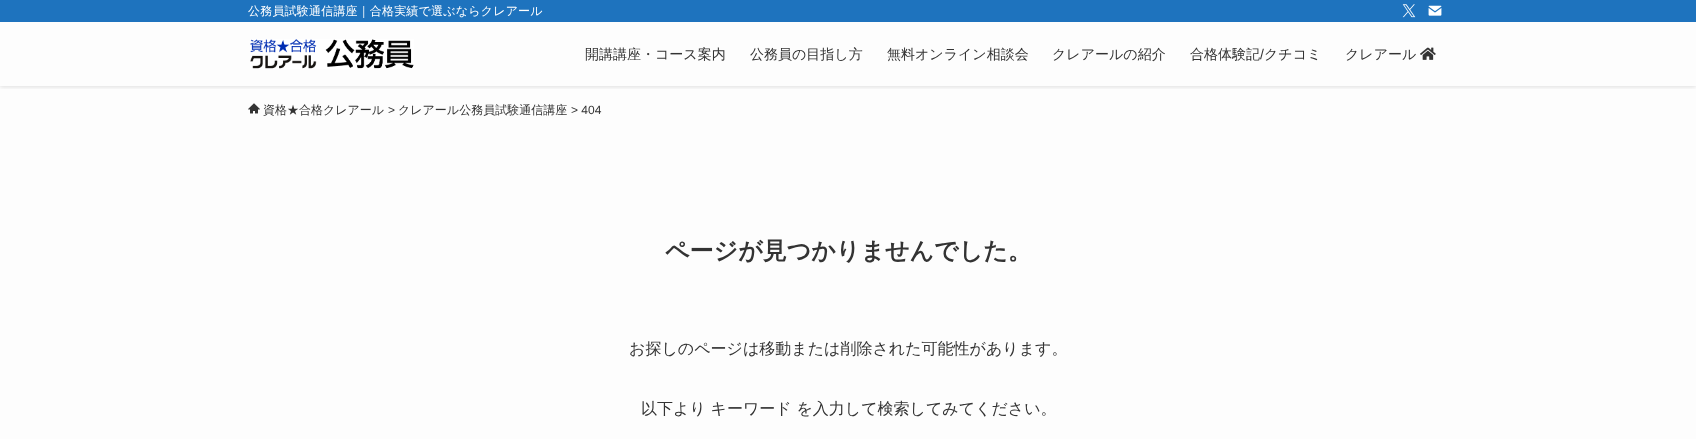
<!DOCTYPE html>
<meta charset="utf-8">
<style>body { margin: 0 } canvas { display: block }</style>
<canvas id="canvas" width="1696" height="439"></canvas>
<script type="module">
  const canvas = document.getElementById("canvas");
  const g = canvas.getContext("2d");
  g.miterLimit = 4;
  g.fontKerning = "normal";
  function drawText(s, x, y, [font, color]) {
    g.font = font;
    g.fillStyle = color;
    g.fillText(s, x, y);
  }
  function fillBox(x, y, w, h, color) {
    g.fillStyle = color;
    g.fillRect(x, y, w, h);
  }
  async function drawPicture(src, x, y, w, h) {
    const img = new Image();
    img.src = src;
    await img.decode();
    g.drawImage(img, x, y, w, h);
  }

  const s1 = ["500 12px WenQuanYi Zen Hei", "#FFFFFF"];
  const s2 = ["500 14px WenQuanYi Zen Hei", "#333333"];
  const s3 = ["14px Liberation Sans", "#333333"];
  const s4 = ["500 12px WenQuanYi Zen Hei", "#333333"];
  const s5 = ["12px Liberation Sans", "#333333"];
  const s6 = ["bold 24px WenQuanYi Zen Hei", "#333333"];
  const s7 = ["500 16px WenQuanYi Zen Hei", "#333333"];

  fillBox(0, 0, 1696, 439, "#FDFDFD");
  g.save();
  g.beginPath();
  g.rect(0, 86, 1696, 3);
  g.clip();
  g.fillStyle = "rgba(0, 0, 0, 0.12)";
  g.filter = "blur(2px)";
  g.beginPath();
  g.rect(0, 1, 1696, 86);
  g.fill();
  g.filter = "none";
  g.restore();
  fillBox(0, 0, 1696, 22, "#1E73BE");
  g.letterSpacing = "0.2px";
  drawText("公務員試験通信講座｜合格実績で選ぶならクレアール", 248, 15, s1);
  await drawPicture("pic1.png", 1402, 4, 14, 14);
  await drawPicture("pic2.png", 1428, 5, 14, 11);
  await drawPicture("pic3.png", 250, 39, 164, 30);
  g.letterSpacing = "0px";
  drawText("開講講座・コース案内", 585, 59, s2);
  drawText("公務員の目指し方", 750, 59, s2);
  drawText("無料オンライン相談会", 887, 59, s2);
  drawText("クレアールの紹介", 1052, 59, s2);
  drawText("合格体験記", 1190, 59, s2);
  drawText("/", 1260, 59, s3);
  drawText("クチコミ", 1264, 59, s2);
  drawText("クレアール", 1345, 59, s2);
  await drawPicture("pic4.png", 1420, 47, 16, 13);
  await drawPicture("pic5.png", 248, 103, 12, 11);
  drawText("資格★合格クレアール", 263, 114, s4);
  drawText(">", 388, 114, s5);
  drawText("クレアール公務員試験通信講座", 398, 114, s4);
  drawText("> 404", 571, 114, s5);
  drawText("ページが見つかりませんでした。", 665, 259, s6);
  drawText("お探しのページは移動または削除された可能性があります。", 629, 354, s7);
  drawText("以下より キーワード を入力して検索してみてください。", 641, 414, s7);
</script>
